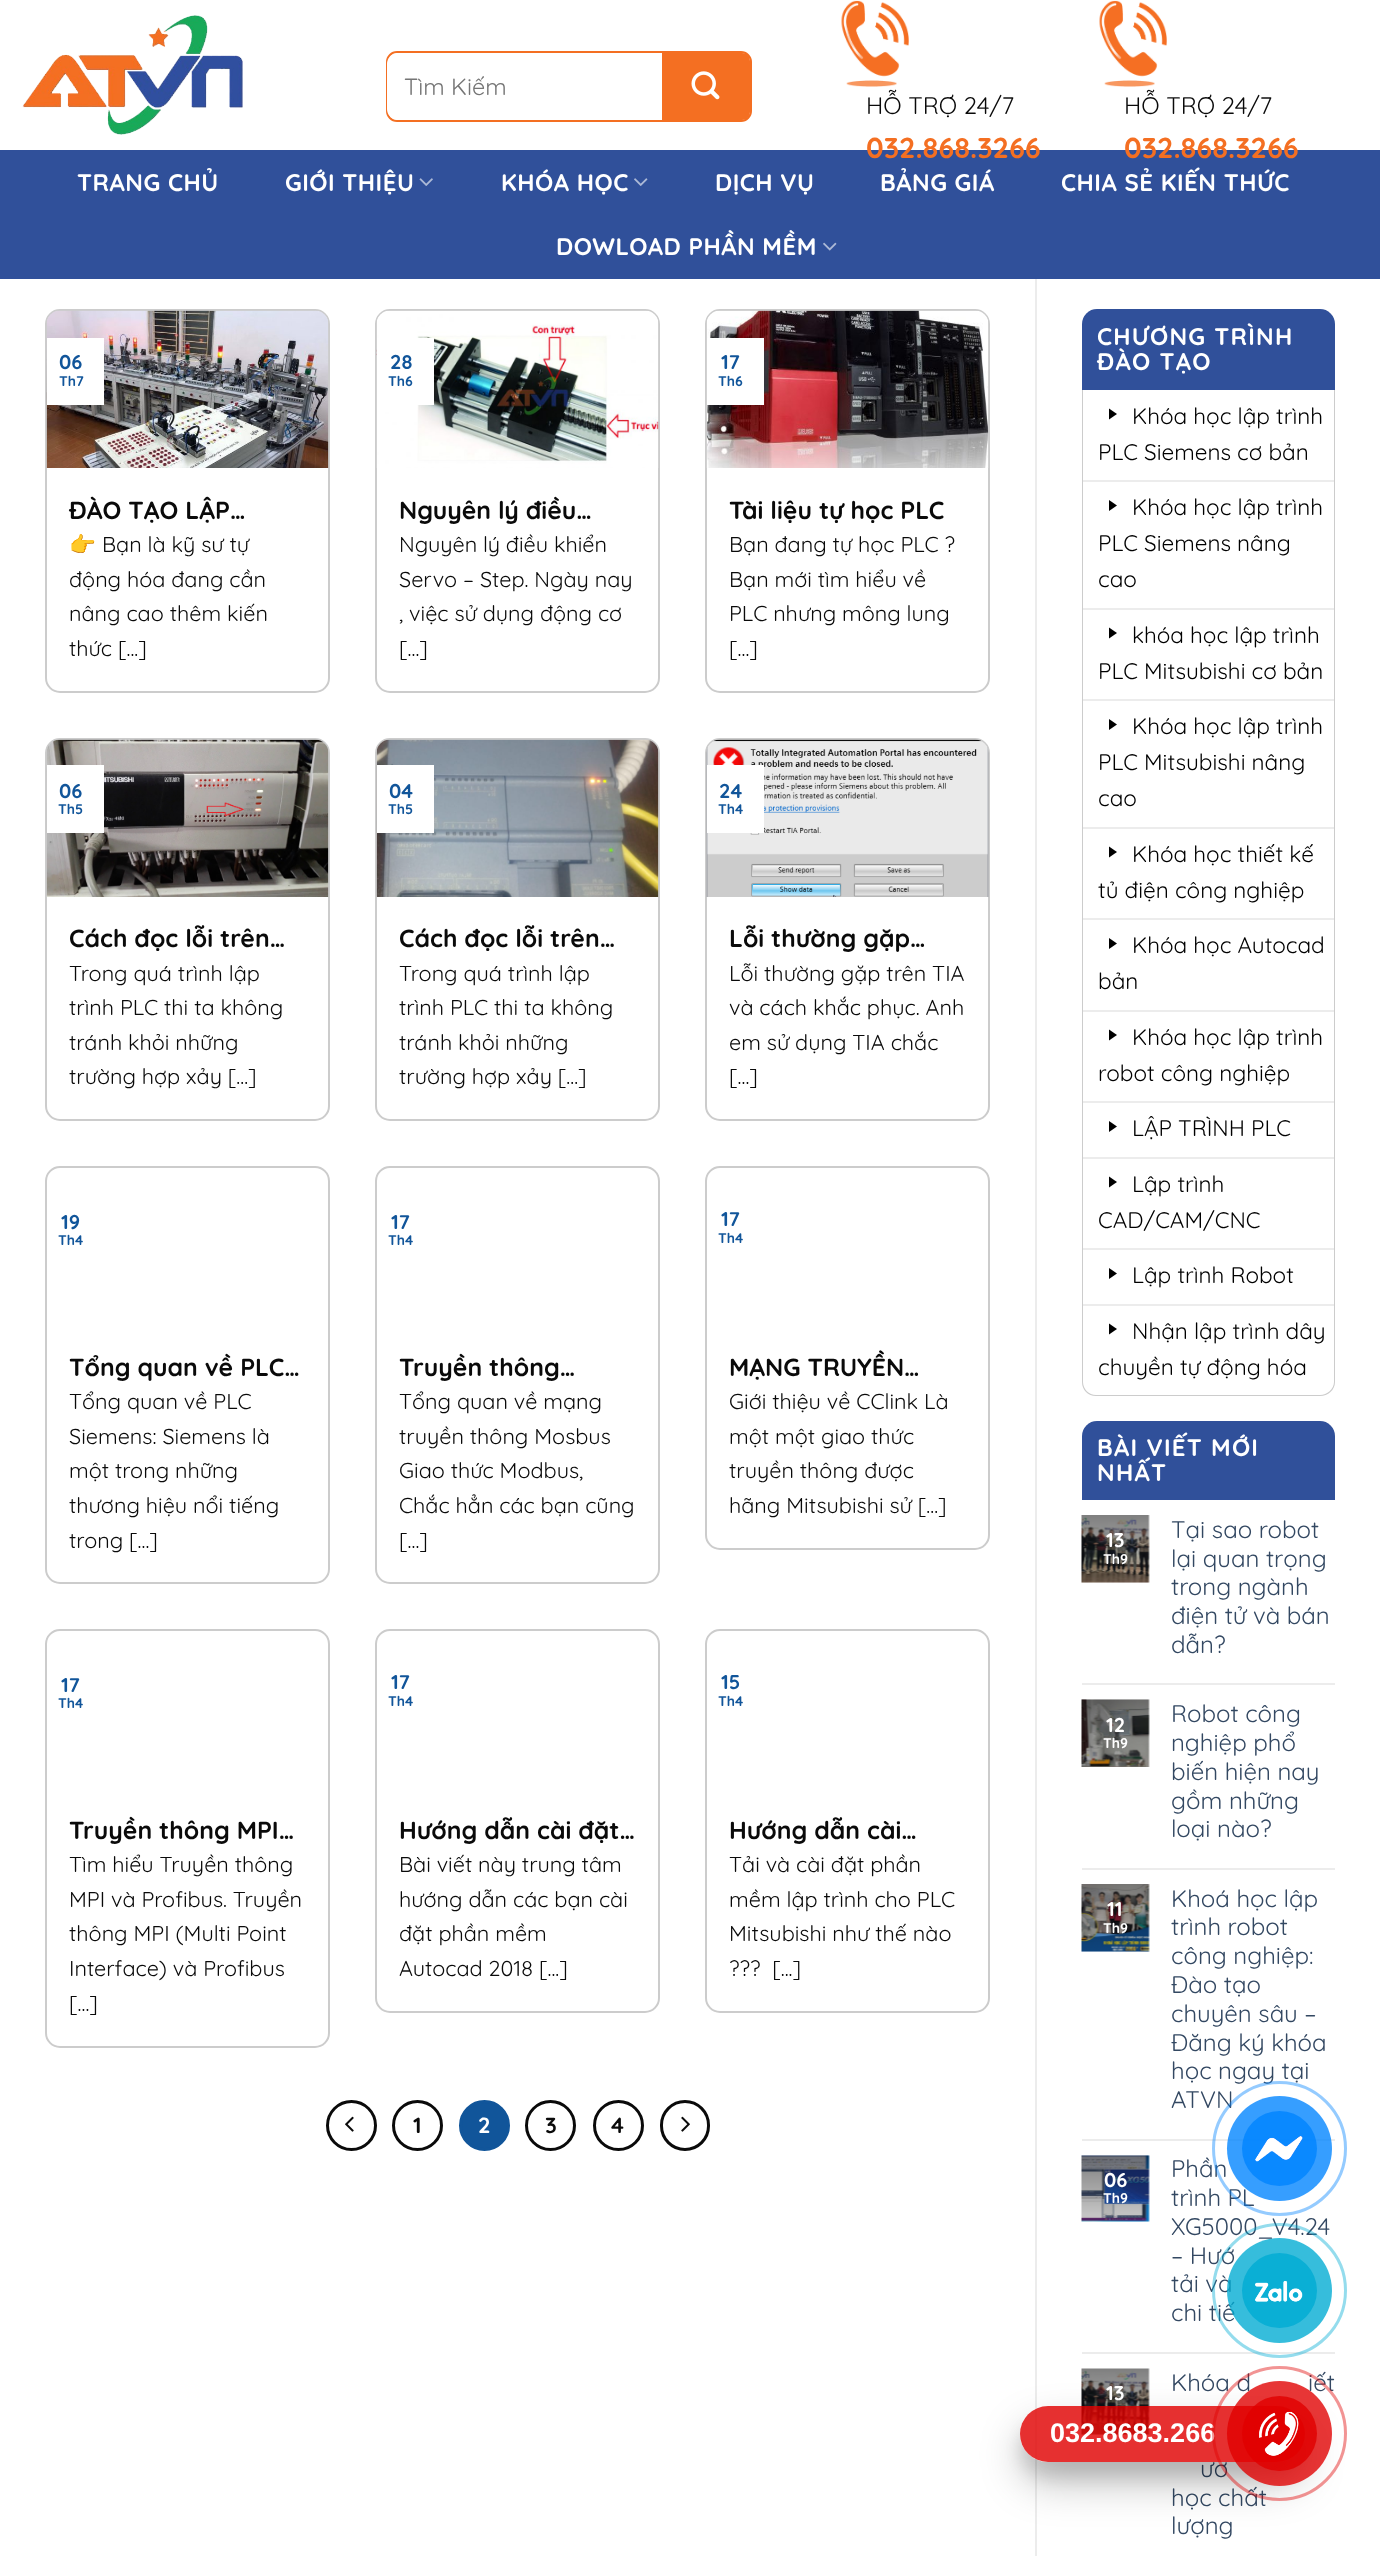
<!DOCTYPE html>
<meta charset="utf-8">
<style>body { margin: 0 } canvas { display: block }</style>
<canvas id="canvas" width="1380" height="2556"></canvas>
<script type="module">
  const canvas = document.getElementById("canvas");
  const g = canvas.getContext("2d");
  g.miterLimit = 4;
  g.fontKerning = "normal";
  function drawText(s, x, y, [font, color]) {
    g.font = font;
    g.fillStyle = color;
    g.fillText(s, x, y);
  }
  function fillBox(x, y, w, h, color) {
    g.fillStyle = color;
    g.fillRect(x, y, w, h);
  }
  function fillRounded(x, y, w, h, r, color) {
    g.fillStyle = color;
    g.beginPath();
    g.roundRect(x, y, w, h, r);
    g.fill();
  }
  async function drawPicture(src, x, y, w, h) {
    const img = new Image();
    img.src = src;
    await img.decode();
    g.drawImage(img, x, y, w, h);
  }

  const s1 = ["23.5px Quicksand", "#757575"];
  const s2 = ["24px Quicksand", "#0A0A0A"];
  const s3 = ["bold 28.75px Quicksand", "#F46F22"];
  const s4 = ["bold 24px Quicksand", "#FFFFFF"];
  const s5 = ["bold 20px Quicksand", "#11559A"];
  const s6 = ["bold 14px Quicksand", "#11559A"];
  const s7 = ["bold 24.75px Quicksand", "#0A0A0A"];
  const s8 = ["21.6px Noto Color Emoji", "#0A0A0A"];
  const s9 = ["21.6px Quicksand", "#0A0A0A"];
  const s10 = ["bold 22px Quicksand", "#0A0A0A"];
  const s11 = ["bold 22px Quicksand", "#FFFFFF"];
  const s12 = ["22.5px Quicksand", "#000000"];
  const s13 = ["bold 20px Quicksand", "#FFFFFF"];
  const s14 = ["bold 14px Quicksand", "#FFFFFF"];
  const s15 = ["24px Quicksand", "#334862"];
  const s16 = ["bold 27px Liberation Sans", "#FFFFFF"];

  fillBox(0, 0, 1380, 2556, "#FFFFFF");
  await drawPicture("pic1.png", 22, 15, 221, 120);
  g.beginPath();
  g.roundRect(387, 52, 364, 69, 10);
  g.strokeStyle = "#F46F22";
  g.lineWidth = 2;
  g.stroke();
  g.beginPath();
  g.roundRect(387, 53, 275, 67, [11, 0, 0, 11]);
  g.fill();
  drawText("Tìm Kiếm", 404, 95, s1);
  g.fillStyle = "#F46F22";
  g.beginPath();
  g.roundRect(662, 53, 88, 67, [0, 8, 8, 0]);
  g.fill();
  await drawPicture("pic2.png", 691, 71, 29, 29);
  await drawPicture("pic3.png", 841, 0, 68, 87);
  drawText("HỖ TRỢ 24/7", 866, 114, s2);
  fillBox(0, 150, 1380, 129, "#30509A");
  drawText("032.868.3266", 866, 158, s3);
  await drawPicture("pic3.png", 1099, 0, 68, 87);
  drawText("HỖ TRỢ 24/7", 1124, 114, s2);
  drawText("032.868.3266", 1124, 158, s3);
  g.letterSpacing = "0.5px";
  drawText("TRANG CHỦ", 77, 191, s4);
  drawText("GIỚI THIỆU", 285, 191, s4);
  await drawPicture("pic4.png", 419, 178, 14, 8);
  drawText("KHÓA HỌC", 501, 191, s4);
  await drawPicture("pic5.png", 634, 178, 14, 8);
  drawText("DỊCH VỤ", 715, 191, s4);
  drawText("BẢNG GIÁ", 880, 191, s4);
  drawText("CHIA SẺ KIẾN THỨC", 1061, 191, s4);
  drawText("DOWLOAD PHẦN MỀM", 556, 255, s4);
  await drawPicture("pic6.png", 823, 242, 14, 9);
  g.beginPath();
  g.roundRect(46, 310, 283, 382, 14);
  g.strokeStyle = "#CCCCCC";
  g.stroke();
  await drawPicture("pic7.png", 46, 310, 283, 158);
  fillBox(47, 338, 57, 67, "#FFFFFF");
  g.letterSpacing = "0px";
  drawText("06", 59, 369, s5);
  drawText("Th7", 59, 386, s6);
  drawText("ĐÀO TẠO LẬP…", 69, 519, s7);
  drawText("👉", 69, 552, s8);
  drawText("Bạn là kỹ sư tự", 102, 552, s9);
  drawText("động hóa đang cần", 69, 587, s9);
  drawText("nâng cao thêm kiến", 69, 621, s9);
  drawText("thức [...]", 69, 656, s9);
  g.beginPath();
  g.roundRect(376, 310, 283, 382, 14);
  g.stroke();
  await drawPicture("pic8.png", 376, 310, 283, 158);
  fillBox(377, 338, 57, 67, "#FFFFFF");
  drawText("28", 390, 369, s5);
  drawText("Th6", 388, 386, s6);
  drawText("Nguyên lý điều…", 399, 519, s7);
  drawText("Nguyên lý điều khiển", 399, 552, s9);
  drawText("Servo – Step. Ngày nay", 399, 587, s9);
  drawText(", việc sử dụng động cơ", 399, 621, s9);
  drawText("[...]", 399, 656, s9);
  g.beginPath();
  g.roundRect(706, 310, 283, 382, 14);
  g.stroke();
  await drawPicture("pic9.png", 706, 310, 283, 158);
  fillBox(707, 338, 57, 67, "#FFFFFF");
  drawText("17", 721, 369, s5);
  drawText("Th6", 718, 386, s6);
  drawText("Tài liệu tự học PLC", 729, 519, s7);
  drawText("Bạn đang tự học PLC ?", 729, 552, s9);
  drawText("Bạn mới tìm hiểu về", 729, 587, s9);
  drawText("PLC nhưng mông lung", 729, 621, s9);
  drawText("[...]", 729, 656, s9);
  g.beginPath();
  g.roundRect(46, 739, 283, 381, 14);
  g.stroke();
  await drawPicture("pic10.png", 46, 739, 283, 158);
  fillBox(47, 765, 57, 68, "#FFFFFF");
  drawText("06", 59, 798, s5);
  drawText("Th5", 58, 814, s6);
  drawText("Cách đọc lỗi trên…", 69, 947, s7);
  drawText("Trong quá trình lập", 69, 981, s9);
  drawText("trình PLC thi ta không", 69, 1015, s9);
  drawText("tránh khỏi những", 69, 1050, s9);
  drawText("trường hợp xảy [...]", 69, 1084, s9);
  g.beginPath();
  g.roundRect(376, 739, 283, 381, 14);
  g.stroke();
  await drawPicture("pic11.png", 376, 739, 283, 158);
  fillBox(377, 765, 57, 68, "#FFFFFF");
  drawText("04", 389, 798, s5);
  drawText("Th5", 388, 814, s6);
  drawText("Cách đọc lỗi trên…", 399, 947, s7);
  drawText("Trong quá trình lập", 399, 981, s9);
  drawText("trình PLC thi ta không", 399, 1015, s9);
  drawText("tránh khỏi những", 399, 1050, s9);
  drawText("trường hợp xảy [...]", 399, 1084, s9);
  g.beginPath();
  g.roundRect(706, 739, 283, 381, 14);
  g.stroke();
  await drawPicture("pic12.png", 706, 739, 283, 158);
  fillBox(707, 765, 57, 68, "#FFFFFF");
  drawText("24", 719, 798, s5);
  drawText("Th4", 718, 814, s6);
  drawText("Lỗi thường gặp…", 729, 947, s7);
  drawText("Lỗi thường gặp trên TIA", 729, 981, s9);
  drawText("và cách khắc phục. Anh", 729, 1015, s9);
  drawText("em sử dụng TIA chắc", 729, 1050, s9);
  drawText("[...]", 729, 1084, s9);
  g.beginPath();
  g.roundRect(46, 1167, 283, 416, 14);
  g.stroke();
  drawText("19", 61, 1229, s5);
  drawText("Th4", 58, 1245, s6);
  drawText("Tổng quan về PLC…", 69, 1376, s7);
  drawText("Tổng quan về PLC", 69, 1409, s9);
  drawText("Siemens: Siemens là", 69, 1444, s9);
  drawText("một trong những", 69, 1478, s9);
  drawText("thương hiệu nổi tiếng", 69, 1513, s9);
  drawText("trong [...]", 69, 1548, s9);
  g.beginPath();
  g.roundRect(376, 1167, 283, 416, 14);
  g.stroke();
  drawText("17", 391, 1229, s5);
  drawText("Th4", 388, 1245, s6);
  drawText("Truyền thông…", 399, 1376, s7);
  drawText("Tổng quan về mạng", 399, 1409, s9);
  drawText("truyền thông Mosbus", 399, 1444, s9);
  drawText("Giao thức Modbus,", 399, 1478, s9);
  drawText("Chắc hẳn các bạn cũng", 399, 1513, s9);
  drawText("[...]", 399, 1548, s9);
  g.beginPath();
  g.roundRect(706, 1167, 283, 382, 14);
  g.stroke();
  drawText("17", 721, 1226, s5);
  drawText("Th4", 718, 1243, s6);
  drawText("MẠNG TRUYỀN…", 729, 1376, s7);
  drawText("Giới thiệu về CClink Là", 729, 1409, s9);
  drawText("một một giao thức", 729, 1444, s9);
  drawText("truyền thông được", 729, 1478, s9);
  drawText("hãng Mitsubishi sử [...]", 729, 1513, s9);
  g.beginPath();
  g.roundRect(46, 1630, 283, 417, 14);
  g.stroke();
  drawText("17", 61, 1692, s5);
  drawText("Th4", 58, 1708, s6);
  drawText("Truyền thông MPI…", 69, 1839, s7);
  drawText("Tìm hiểu Truyền thông", 69, 1872, s9);
  drawText("MPI và Profibus. Truyền", 69, 1907, s9);
  drawText("thông MPI (Multi Point", 69, 1941, s9);
  drawText("Interface) và Profibus", 69, 1976, s9);
  drawText("[...]", 69, 2011, s9);
  g.beginPath();
  g.roundRect(376, 1630, 283, 382, 14);
  g.stroke();
  drawText("17", 391, 1689, s5);
  drawText("Th4", 388, 1706, s6);
  drawText("Hướng dẫn cài đặt…", 399, 1839, s7);
  drawText("Bài viết này trung tâm", 399, 1872, s9);
  drawText("hướng dẫn các bạn cài", 399, 1907, s9);
  drawText("đặt phần mềm", 399, 1941, s9);
  drawText("Autocad 2018 [...]", 399, 1976, s9);
  g.beginPath();
  g.roundRect(706, 1630, 283, 382, 14);
  g.stroke();
  drawText("15", 721, 1689, s5);
  drawText("Th4", 718, 1706, s6);
  drawText("Hướng dẫn cài…", 729, 1839, s7);
  drawText("Tải và cài đặt phần", 729, 1872, s9);
  drawText("mềm lập trình cho PLC", 729, 1907, s9);
  drawText("Mitsubishi như thế nào", 729, 1941, s9);
  drawText("???  [...]", 729, 1976, s9);
  g.beginPath();
  g.arc(351.5, 2125.5, 24, 0, Math.PI * 2);
  g.strokeStyle = "#0A0A0A";
  g.lineWidth = 3;
  g.stroke();
  await drawPicture("pic13.png", 345, 2116, 9, 16);
  g.beginPath();
  g.arc(417.5, 2125.5, 24, 0, Math.PI * 2);
  g.stroke();
  drawText("1", 413, 2133, s10);
  g.fillStyle = "#11559A";
  g.beginPath();
  g.arc(484.5, 2125.5, 24, 0, Math.PI * 2);
  g.fill();
  g.strokeStyle = "#11559A";
  g.stroke();
  drawText("2", 478, 2133, s11);
  g.beginPath();
  g.arc(550.5, 2125.5, 24, 0, Math.PI * 2);
  g.strokeStyle = "#0A0A0A";
  g.stroke();
  drawText("3", 545, 2133, s10);
  g.beginPath();
  g.arc(618.5, 2125.5, 24, 0, Math.PI * 2);
  g.stroke();
  drawText("4", 611, 2133, s10);
  g.beginPath();
  g.roundRect(661.5, 2101.5, 47, 48, 23.5);
  g.stroke();
  await drawPicture("pic14.png", 681, 2116, 9, 16);
  fillBox(1035, 279, 2, 2277, "#ECECEC");
  g.fillStyle = "#30509A";
  g.beginPath();
  g.roundRect(1082, 309, 253, 81, [15, 15, 0, 0]);
  g.fill();
  g.letterSpacing = "1.25px";
  drawText("CHƯƠNG TRÌNH", 1097, 345, s4);
  drawText("ĐÀO TẠO", 1097, 370, s4);
  g.fillStyle = "#CCCCCC";
  g.beginPath();
  g.moveTo(1082, 390);
  g.lineTo(1335, 390);
  g.lineTo(1335, 1382);
  g.bezierCurveTo(1335, 1390, 1328, 1396, 1320, 1396);
  g.lineTo(1096, 1396);
  g.bezierCurveTo(1088, 1396, 1082, 1390, 1082, 1382);
  g.closePath();
  g.moveTo(1083, 390);
  g.lineTo(1334, 390);
  g.lineTo(1334, 1382);
  g.bezierCurveTo(1334, 1389, 1327, 1395, 1320, 1395);
  g.lineTo(1096, 1395);
  g.bezierCurveTo(1089, 1395, 1083, 1389, 1083, 1382);
  g.closePath();
  g.fill("evenodd");
  g.fillStyle = "#000000";
  g.beginPath();
  g.moveTo(1109, 408.5);
  g.lineTo(1117, 414);
  g.lineTo(1109, 419.5);
  g.closePath();
  g.fill();
  g.letterSpacing = "0px";
  drawText("Khóa học lập trình", 1132, 424, s12);
  drawText("PLC Siemens cơ bản", 1098, 460, s12);
  fillBox(1083, 480, 251, 2, "#ECECEC");
  g.fillStyle = "#000000";
  g.beginPath();
  g.moveTo(1109, 500);
  g.lineTo(1117, 505.5);
  g.lineTo(1109, 511);
  g.closePath();
  g.fill();
  drawText("Khóa học lập trình", 1132, 515, s12);
  drawText("PLC Siemens nâng", 1098, 551, s12);
  drawText("cao", 1098, 587, s12);
  fillBox(1083, 608, 251, 2, "#ECECEC");
  g.fillStyle = "#000000";
  g.beginPath();
  g.moveTo(1109, 627.5);
  g.lineTo(1117, 633);
  g.lineTo(1109, 638.5);
  g.closePath();
  g.fill();
  drawText("khóa học lập trình", 1132, 643, s12);
  drawText("PLC Mitsubishi cơ bản", 1098, 679, s12);
  fillBox(1083, 699, 251, 2, "#ECECEC");
  g.fillStyle = "#000000";
  g.beginPath();
  g.moveTo(1109, 719);
  g.lineTo(1117, 724.5);
  g.lineTo(1109, 730);
  g.closePath();
  g.fill();
  drawText("Khóa học lập trình", 1132, 734, s12);
  drawText("PLC Mitsubishi nâng", 1098, 770, s12);
  drawText("cao", 1098, 806, s12);
  fillBox(1083, 827, 251, 2, "#ECECEC");
  g.fillStyle = "#000000";
  g.beginPath();
  g.moveTo(1109, 846.5);
  g.lineTo(1117, 852);
  g.lineTo(1109, 857.5);
  g.closePath();
  g.fill();
  drawText("Khóa học thiết kế", 1132, 862, s12);
  drawText("tủ điện công nghiệp", 1098, 898, s12);
  fillBox(1083, 918, 251, 2, "#ECECEC");
  g.fillStyle = "#000000";
  g.beginPath();
  g.moveTo(1109, 938);
  g.lineTo(1117, 943.5);
  g.lineTo(1109, 949);
  g.closePath();
  g.fill();
  drawText("Khóa học Autocad", 1132, 953, s12);
  drawText("bản", 1098, 989, s12);
  fillBox(1083, 1010, 251, 2, "#ECECEC");
  g.fillStyle = "#000000";
  g.beginPath();
  g.moveTo(1109, 1029.5);
  g.lineTo(1117, 1035);
  g.lineTo(1109, 1040.5);
  g.closePath();
  g.fill();
  drawText("Khóa học lập trình", 1132, 1045, s12);
  drawText("robot công nghiệp", 1098, 1081, s12);
  fillBox(1083, 1101, 251, 2, "#ECECEC");
  g.fillStyle = "#000000";
  g.beginPath();
  g.moveTo(1109, 1121);
  g.lineTo(1117, 1126.5);
  g.lineTo(1109, 1132);
  g.closePath();
  g.fill();
  drawText("LẬP TRÌNH PLC", 1132, 1136, s12);
  fillBox(1083, 1157, 251, 2, "#ECECEC");
  g.fillStyle = "#000000";
  g.beginPath();
  g.moveTo(1109, 1176.5);
  g.lineTo(1117, 1182);
  g.lineTo(1109, 1187.5);
  g.closePath();
  g.fill();
  drawText("Lập trình", 1132, 1192, s12);
  drawText("CAD/CAM/CNC", 1098, 1228, s12);
  fillBox(1083, 1248, 251, 2, "#ECECEC");
  g.fillStyle = "#000000";
  g.beginPath();
  g.moveTo(1109, 1268);
  g.lineTo(1117, 1273.5);
  g.lineTo(1109, 1279);
  g.closePath();
  g.fill();
  drawText("Lập trình Robot", 1132, 1283, s12);
  fillBox(1083, 1304, 251, 2, "#ECECEC");
  g.fillStyle = "#000000";
  g.beginPath();
  g.moveTo(1109, 1323.5);
  g.lineTo(1117, 1329);
  g.lineTo(1109, 1334.5);
  g.closePath();
  g.fill();
  drawText("Nhận lập trình dây", 1132, 1339, s12);
  drawText("chuyền tự động hóa", 1098, 1375, s12);
  g.fillStyle = "#30509A";
  g.beginPath();
  g.roundRect(1082, 1421, 253, 79, [15, 15, 0, 0]);
  g.fill();
  g.letterSpacing = "1.25px";
  drawText("BÀI VIẾT MỚI", 1097, 1456, s4);
  drawText("NHẤT", 1097, 1481, s4);
  await drawPicture("pic15.png", 1081, 1515, 69, 68);
  g.letterSpacing = "0px";
  drawText("13", 1106, 1547, s13);
  drawText("Th9", 1103, 1564, s14);
  drawText("Tại sao robot", 1171, 1538, s15);
  drawText("lại quan trọng", 1171, 1567, s15);
  drawText("trong ngành", 1171, 1595, s15);
  drawText("điện tử và bán", 1171, 1624, s15);
  drawText("dẫn?", 1171, 1653, s15);
  fillBox(1082, 1683, 253, 2, "#ECECEC");
  await drawPicture("pic16.png", 1081, 1699, 69, 68);
  drawText("12", 1106, 1732, s13);
  drawText("Th9", 1103, 1748, s14);
  drawText("Robot công", 1171, 1722, s15);
  drawText("nghiệp phổ", 1171, 1751, s15);
  drawText("biến hiện nay", 1171, 1780, s15);
  drawText("gồm những", 1171, 1809, s15);
  drawText("loại nào?", 1171, 1837, s15);
  fillBox(1082, 1868, 253, 2, "#ECECEC");
  await drawPicture("pic17.png", 1081, 1884, 69, 68);
  drawText("11", 1107, 1916, s13);
  drawText("Th9", 1103, 1933, s14);
  drawText("Khoá học lập", 1171, 1907, s15);
  drawText("trình robot", 1171, 1935, s15);
  drawText("công nghiệp:", 1171, 1964, s15);
  drawText("Đào tạo", 1171, 1993, s15);
  drawText("chuyên sâu –", 1171, 2022, s15);
  drawText("Đăng ký khóa", 1171, 2051, s15);
  drawText("học ngay tại", 1171, 2079, s15);
  drawText("ATVN", 1171, 2108, s15);
  fillBox(1082, 2139, 253, 2, "#ECECEC");
  await drawPicture("pic18.png", 1081, 2155, 69, 67);
  drawText("06", 1104, 2187, s13);
  drawText("Th9", 1103, 2203, s14);
  drawText("Phần", 1171, 2177, s15);
  drawText("trình PL", 1171, 2206, s15);
  drawText("XG5000_V4.24", 1171, 2235, s15);
  drawText("– Hướ", 1171, 2264, s15);
  drawText("tải và", 1171, 2292, s15);
  drawText("chi tiế", 1171, 2321, s15);
  fillBox(1082, 2352, 253, 2, "#ECECEC");
  await drawPicture("pic19.png", 1081, 2368, 69, 67);
  drawText("13", 1106, 2400, s13);
  drawText("Khóa d", 1171, 2391, s15);
  drawText("iết", 1308, 2391, s15);
  drawText("ươ", 1200, 2477, s15);
  drawText("học chất", 1171, 2506, s15);
  drawText("lượng", 1171, 2534, s15);
  g.beginPath();
  g.arc(1279.5, 2148.5, 66, 0, Math.PI * 2);
  g.strokeStyle = "rgba(0, 132, 255, 0.42)";
  g.stroke();
  g.fillStyle = "rgba(0, 132, 255, 0.79)";
  g.beginPath();
  g.arc(1279.5, 2148.5, 52.5, 0, Math.PI * 2);
  g.fill();
  g.fillStyle = "rgba(0, 132, 255, 0.81)";
  g.beginPath();
  g.arc(1279.5, 2148.5, 37.5, 0, Math.PI * 2);
  g.fill();
  await drawPicture("pic20.png", 1255, 2136, 48, 26);
  g.beginPath();
  g.arc(1279.5, 2290.5, 66, 0, Math.PI * 2);
  g.strokeStyle = "rgba(0, 171, 211, 0.42)";
  g.stroke();
  g.fillStyle = "rgba(0, 171, 211, 0.79)";
  g.beginPath();
  g.arc(1279.5, 2290.5, 52.5, 0, Math.PI * 2);
  g.fill();
  g.fillStyle = "rgba(0, 171, 211, 0.81)";
  g.beginPath();
  g.arc(1279.5, 2290.5, 37.5, 0, Math.PI * 2);
  g.fill();
  await drawPicture("pic21.png", 1255, 2281, 48, 21);
  g.save();
  g.beginPath();
  g.moveTo(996, 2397);
  g.lineTo(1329, 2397);
  g.lineTo(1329, 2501);
  g.lineTo(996, 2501);
  g.closePath();
  g.moveTo(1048, 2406);
  g.lineTo(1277, 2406);
  g.bezierCurveTo(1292.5, 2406, 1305, 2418.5, 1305, 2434);
  g.bezierCurveTo(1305, 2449.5, 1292.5, 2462, 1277, 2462);
  g.lineTo(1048, 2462);
  g.bezierCurveTo(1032.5, 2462, 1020, 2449.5, 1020, 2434);
  g.bezierCurveTo(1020, 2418.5, 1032.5, 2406, 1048, 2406);
  g.closePath();
  g.clip("evenodd");
  g.fillStyle = "rgba(0, 0, 0, 0.1)";
  g.filter = "blur(7.5px)";
  g.beginPath();
  g.roundRect(1020, 2421, 285, 56, 28);
  g.fill();
  g.filter = "none";
  g.restore();
  g.save();
  g.beginPath();
  g.moveTo(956, 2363);
  g.lineTo(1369, 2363);
  g.lineTo(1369, 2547);
  g.lineTo(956, 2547);
  g.closePath();
  g.moveTo(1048, 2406);
  g.lineTo(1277, 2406);
  g.bezierCurveTo(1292.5, 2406, 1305, 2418.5, 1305, 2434);
  g.bezierCurveTo(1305, 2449.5, 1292.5, 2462, 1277, 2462);
  g.lineTo(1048, 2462);
  g.bezierCurveTo(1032.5, 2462, 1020, 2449.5, 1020, 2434);
  g.bezierCurveTo(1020, 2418.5, 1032.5, 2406, 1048, 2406);
  g.closePath();
  g.clip("evenodd");
  g.fillStyle = "rgba(0, 0, 0, 0.25)";
  g.filter = "blur(21px)";
  g.beginPath();
  g.roundRect(1020, 2427, 285, 56, 28);
  g.fill();
  g.filter = "none";
  g.restore();
  fillRounded(1020, 2406, 285, 56, 28, "rgba(224, 0, 0, 0.81)");
  drawText("032.8683.266", 1050, 2442, s16);
  g.beginPath();
  g.arc(1279.5, 2433.5, 66, 0, Math.PI * 2);
  g.strokeStyle = "rgba(224, 0, 0, 0.42)";
  g.stroke();
  g.fillStyle = "rgba(224, 0, 0, 0.79)";
  g.beginPath();
  g.arc(1279.5, 2433.5, 52.5, 0, Math.PI * 2);
  g.fill();
  g.fillStyle = "rgba(224, 0, 0, 0.81)";
  g.beginPath();
  g.arc(1279.5, 2433.5, 37.5, 0, Math.PI * 2);
  g.fill();
  await drawPicture("pic22.png", 1259, 2411, 40, 45);
</script>
